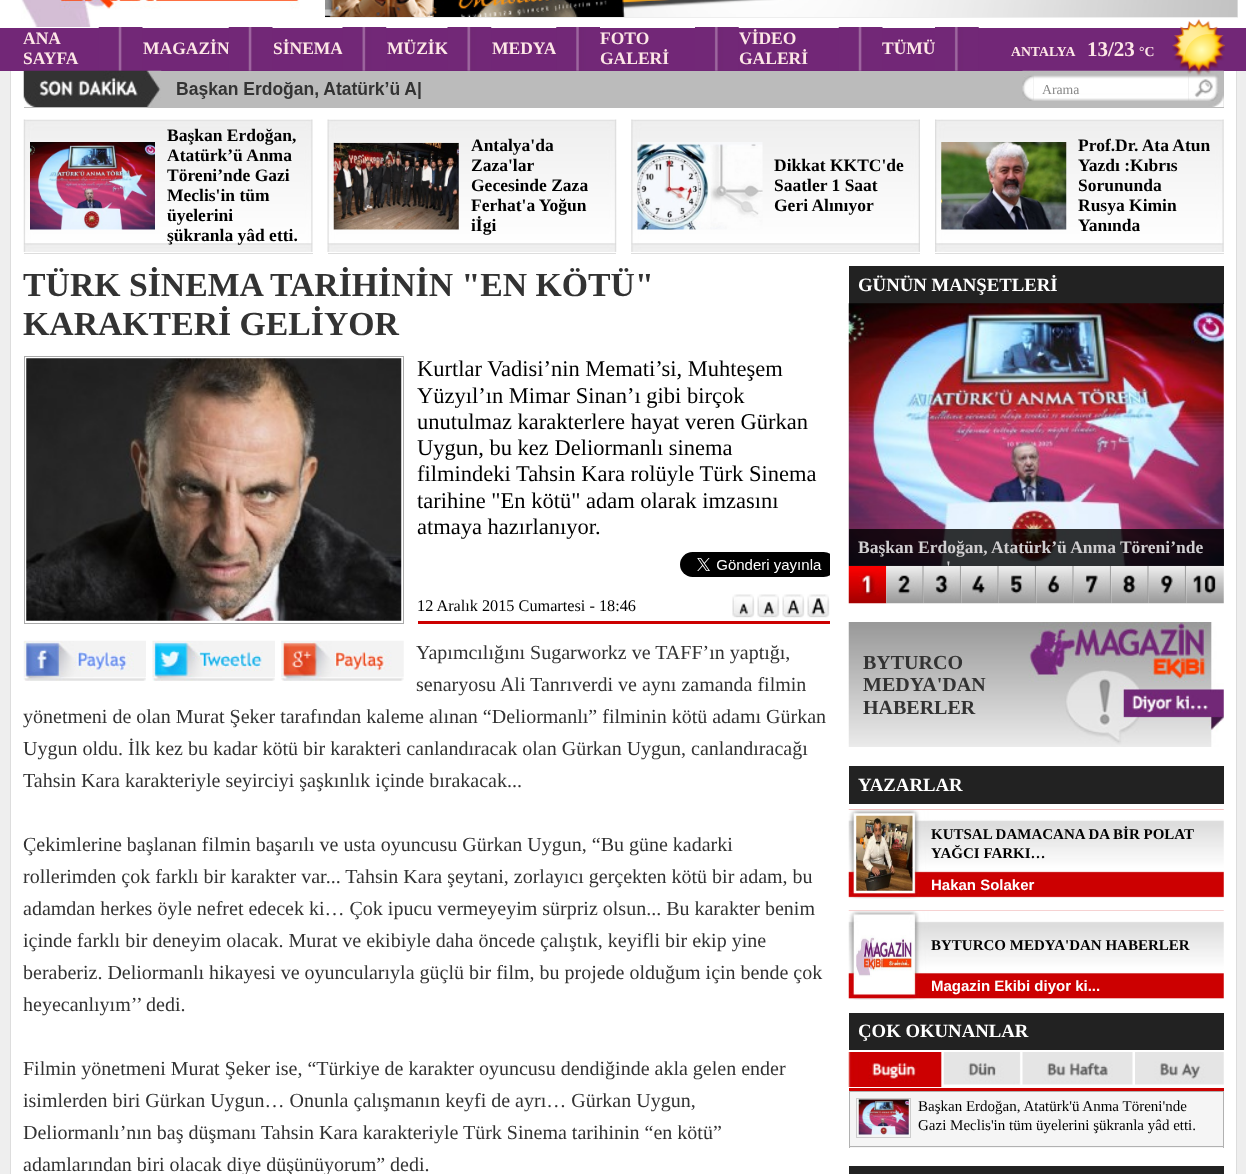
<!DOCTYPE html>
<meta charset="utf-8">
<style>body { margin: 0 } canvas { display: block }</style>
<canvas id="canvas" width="1246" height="1174"></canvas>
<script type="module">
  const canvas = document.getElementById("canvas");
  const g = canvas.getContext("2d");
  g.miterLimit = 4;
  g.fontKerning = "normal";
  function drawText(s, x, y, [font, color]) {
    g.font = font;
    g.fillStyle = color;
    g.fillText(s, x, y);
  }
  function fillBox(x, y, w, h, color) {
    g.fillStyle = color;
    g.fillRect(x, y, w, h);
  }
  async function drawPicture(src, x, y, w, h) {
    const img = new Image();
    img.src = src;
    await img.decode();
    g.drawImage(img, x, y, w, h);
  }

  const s1 = ["bold 17.5px Liberation Serif", "#FDE6E6"];
  const s2 = ["bold 13.75px Liberation Serif", "#FDE6E6"];
  const s3 = ["bold 21px Liberation Serif", "#FDE6E6"];
  const s4 = ["13.75px Liberation Serif", "#888888"];
  const s5 = ["bold 17.5px Liberation Serif", "#000000"];
  const s6 = ["bold 33.75px Liberation Serif", "#333333"];
  const s7 = ["22.5px Liberation Serif", "#000000"];
  const s8 = ["16.25px Liberation Serif", "#000000"];
  const s9 = ["20px Liberation Serif", "#333333"];
  const s10 = ["bold 18.75px Liberation Serif", "#FFFFFF"];
  const s11 = ["bold 17.5px Liberation Serif", "#D0CED0"];
  const s12 = ["bold 20px Liberation Serif", "#333333"];
  const s13 = ["bold 15px Liberation Serif", "#000000"];
  const s14 = ["bold 15px Liberation Sans", "#FFFFFF"];
  const s15 = ["15px Liberation Serif", "#000000"];

  fillBox(0, 0, 1246, 1174, "#EEEEEE");
  fillBox(0, 0, 1246, 28, "#FFFFFF");
  await drawPicture("pic1.png", 21, 0, 279, 27);
  fillBox(325, 0, 913, 18, "#EEEEEE");
  await drawPicture("pic2.png", 325, 0, 913, 17);
  fillBox(0, 28, 1246, 43, "#722777");
  drawText("ANA", 23, 44, s1);
  drawText("SAYFA", 23, 64, s1);
  await drawPicture("pic3.png", 98, 27, 45, 44);
  drawText("MAGAZİN", 143, 54, s1);
  await drawPicture("pic4.png", 228, 27, 45, 44);
  drawText("SİNEMA", 273, 54, s1);
  await drawPicture("pic5.png", 342, 27, 45, 44);
  drawText("MÜZİK", 387, 54, s1);
  await drawPicture("pic6.png", 447, 27, 45, 44);
  drawText("MEDYA", 492, 54, s1);
  await drawPicture("pic7.png", 556, 27, 44, 44);
  drawText("FOTO", 600, 44, s1);
  drawText("GALERİ", 600, 64, s1);
  await drawPicture("pic8.png", 695, 27, 44, 44);
  drawText("VİDEO", 739, 44, s1);
  drawText("GALERİ", 739, 64, s1);
  await drawPicture("pic3.png", 838, 27, 45, 44);
  drawText("TÜMÜ", 882, 54, s1);
  await drawPicture("pic8.png", 935, 27, 44, 44);
  drawText("ANTALYA", 1011, 56, s2);
  drawText("13/23", 1087, 56, s3);
  drawText("°C", 1139, 56, s2);
  fillBox(24, 71, 1200, 37, "#BBBBBB");
  await drawPicture("pic13.png", 1033, 70, 156, 31);
  await drawPicture("pic14.png", 1188, 70, 36, 37);
  fillBox(1224, 71, 12, 1103, "#FFFFFF");
  await drawPicture("pic9.png", 1172, 19, 53, 57);
  fillBox(10, 71, 1, 1103, "#DDDDDD");
  fillBox(11, 71, 13, 1103, "#FFFFFF");
  fillBox(24, 108, 1200, 1066, "#FFFFFF");
  await drawPicture("pic10.png", 23, 70, 139, 37);
  await drawPicture("pic11.png", 177, 82, 244, 17);
  await drawPicture("pic12.png", 1022, 70, 12, 31);
  drawText("Arama", 1042, 94, s4);
  await drawPicture("pic15.png", 23, 119, 290, 133);
  await drawPicture("pic16.png", 30, 142, 125, 88);
  drawText("Başkan Erdoğan,", 167, 141, s5);
  drawText("Atatürk’ü Anma", 167, 161, s5);
  drawText("Töreni’nde Gazi", 167, 181, s5);
  drawText("Meclis'in tüm", 167, 201, s5);
  drawText("üyelerini", 167, 221, s5);
  drawText("şükranla yâd etti.", 167, 241, s5);
  await drawPicture("pic17.png", 327, 119, 290, 133);
  await drawPicture("pic18.png", 333, 142, 126, 88);
  drawText("Antalya'da", 471, 151, s5);
  drawText("Zaza'lar", 471, 171, s5);
  drawText("Gecesinde Zaza", 471, 191, s5);
  drawText("Ferhat'a Yoğun", 471, 211, s5);
  drawText("iİgi", 471, 231, s5);
  await drawPicture("pic19.png", 631, 119, 289, 133);
  await drawPicture("pic20.png", 637, 142, 126, 88);
  drawText("Dikkat KKTC'de", 774, 171, s5);
  drawText("Saatler 1 Saat", 774, 191, s5);
  drawText("Geri Alınıyor", 774, 211, s5);
  await drawPicture("pic21.png", 935, 119, 289, 133);
  await drawPicture("pic22.png", 941, 142, 126, 88);
  drawText("Prof.Dr. Ata Atun", 1078, 151, s5);
  drawText("Yazdı :Kıbrıs", 1078, 171, s5);
  drawText("Sorununda", 1078, 191, s5);
  drawText("Rusya Kimin", 1078, 211, s5);
  drawText("Yanında", 1078, 231, s5);
  fillBox(24, 253, 289, 1, "#DDDDDD");
  fillBox(328, 253, 288, 1, "#DDDDDD");
  fillBox(631, 253, 289, 1, "#DDDDDD");
  fillBox(935, 253, 289, 1, "#DDDDDD");
  drawText("TÜRK SİNEMA TARİHİNİN \"EN KÖTÜ\"", 23, 296, s6);
  drawText("KARAKTERİ GELİYOR", 23, 335, s6);
  fillBox(24, 356, 380, 1, "#AAAAAA");
  fillBox(403, 356, 1, 268, "#AAAAAA");
  fillBox(24, 623, 380, 1, "#AAAAAA");
  fillBox(24, 356, 1, 268, "#AAAAAA");
  await drawPicture("pic23.png", 26, 358, 376, 263);
  drawText("Kurtlar Vadisi’nin Memati’si, Muhteşem", 417, 376, s7);
  drawText("Yüzyıl’ın Mimar Sinan’ı gibi birçok", 417, 403, s7);
  drawText("unutulmaz karakterlere hayat veren Gürkan", 417, 429, s7);
  drawText("Uygun, bu kez Deliormanlı sinema", 417, 455, s7);
  drawText("filmindeki Tahsin Kara rolüyle Türk Sinema", 417, 481, s7);
  drawText("tarihine \"En kötü\" adam olarak imzasını", 417, 508, s7);
  drawText("atmaya hazırlanıyor.", 417, 534, s7);
  await drawPicture("pic24.png", 680, 552, 150, 25);
  drawText("12 Aralık 2015 Cumartesi - 18:46", 417, 611, s8);
  await drawPicture("pic25.png", 732, 594, 23, 24);
  await drawPicture("pic26.png", 757, 594, 23, 24);
  await drawPicture("pic27.png", 782, 594, 23, 24);
  await drawPicture("pic28.png", 807, 594, 23, 24);
  fillBox(418, 621, 412, 3, "#CC0000");
  await drawPicture("pic29.png", 23, 640, 123, 41);
  await drawPicture("pic30.png", 152, 640, 123, 41);
  await drawPicture("pic31.png", 281, 640, 123, 41);
  drawText("Yapımcılığını Sugarworkz ve TAFF’ın yaptığı,", 416, 659, s9);
  drawText("senaryosu Ali Tanrıverdi ve aynı zamanda filmin", 416, 691, s9);
  drawText("yönetmeni de olan Murat Şeker tarafından kaleme alınan “Deliormanlı” filminin kötü adamı Gürkan", 23, 723, s9);
  drawText("Uygun oldu. İlk kez bu kadar kötü bir karakteri canlandıracak olan Gürkan Uygun, canlandıracağı", 23, 755, s9);
  drawText("Tahsin Kara karakteriyle seyirciyi şaşkınlık içinde bırakacak...", 23, 787, s9);
  drawText("Çekimlerine başlanan filmin başarılı ve usta oyuncusu Gürkan Uygun, “Bu güne kadarki", 23, 851, s9);
  drawText("rollerimden çok farklı bir karakter var... Tahsin Kara şeytani, zorlayıcı gerçekten kötü bir adam, bu", 23, 883, s9);
  drawText("adamdan herkes öyle nefret edecek ki… Çok ipucu vermeyeyim sürpriz olsun... Bu karakter benim", 23, 915, s9);
  drawText("içinde farklı bir deneyim olacak. Murat ve ekibiyle daha öncede çalıştık, keyifli bir ekip yine", 23, 947, s9);
  drawText("beraberiz. Deliormanlı hikayesi ve oyuncularıyla güçlü bir film, bu projede olduğum için bende çok", 23, 979, s9);
  drawText("heyecanlıyım’’ dedi.", 23, 1011, s9);
  drawText("Filmin yönetmeni Murat Şeker ise, “Türkiye de karakter oyuncusu dendiğinde akla gelen ender", 23, 1075, s9);
  drawText("isimlerden biri Gürkan Uygun… Onunla çalışmanın keyfi de ayrı… Gürkan Uygun,", 23, 1107, s9);
  drawText("Deliormanlı’nın baş düşmanı Tahsin Kara karakteriyle Türk Sinema tarihinin “en kötü”", 23, 1139, s9);
  drawText("adamlarından biri olacak diye düşünüyorum” dedi.", 23, 1171, s9);
  fillBox(849, 266, 375, 38, "#222222");
  drawText("GÜNÜN MANŞETLERİ", 858, 291, s10);
  await drawPicture("pic33.png", 848, 565, 39, 39);
  await drawPicture("pic34.png", 886, 565, 38, 39);
  await drawPicture("pic35.png", 923, 565, 39, 39);
  await drawPicture("pic36.png", 961, 565, 38, 39);
  await drawPicture("pic37.png", 998, 565, 39, 39);
  await drawPicture("pic38.png", 1036, 565, 38, 39);
  await drawPicture("pic39.png", 1073, 565, 39, 39);
  await drawPicture("pic40.png", 1111, 565, 38, 39);
  await drawPicture("pic41.png", 1148, 565, 39, 39);
  await drawPicture("pic42.png", 1186, 565, 38, 39);
  await drawPicture("pic32.png", 848, 303, 376, 263);
  fillBox(849, 529, 375, 37, "rgba(0, 0, 0, 0.8)");
  drawText("Başkan", 858, 553, s11);
  drawText("Erdoğan, Atatürk’ü Anma Töreni’nde", 918, 553, s11);
  drawText("'", 946, 573, s11);
  await drawPicture("pic43.png", 848, 622, 376, 125);
  drawText("BYTURCO", 863, 669, s12);
  drawText("MEDYA'DAN", 863, 691, s12);
  drawText("HABERLER", 863, 714, s12);
  fillBox(849, 766, 375, 38, "#222222");
  drawText("YAZARLAR", 858, 791, s10);
  await drawPicture("pic44.png", 848, 809, 376, 90);
  await drawPicture("pic45.png", 856, 815, 57, 76);
  drawText("KUTSAL DAMACANA DA BİR POLAT", 931, 839, s13);
  drawText("YAĞCI FARKI…", 931, 858, s13);
  drawText("Hakan Solaker", 931, 890, s14);
  await drawPicture("pic46.png", 848, 910, 376, 90);
  await drawPicture("pic47.png", 856, 935, 57, 57);
  drawText("BYTURCO MEDYA'DAN HABERLER", 931, 950, s13);
  drawText("Magazin Ekibi diyor ki...", 931, 991, s14);
  fillBox(849, 1013, 375, 37, "#222222");
  drawText("ÇOK OKUNANLAR", 858, 1037, s10);
  await drawPicture("pic48.png", 848, 1052, 94, 35);
  await drawPicture("pic49.png", 943, 1052, 78, 33);
  await drawPicture("pic50.png", 1022, 1052, 111, 33);
  await drawPicture("pic51.png", 1135, 1052, 89, 33);
  fillBox(849, 1088, 375, 3, "#CC0000");
  fillBox(850, 1092, 373, 56, "#F5F5F5");
  fillBox(849, 1091, 375, 1, "#B1B1B1");
  fillBox(1223, 1091, 1, 57, "#B1B1B1");
  fillBox(849, 1146, 375, 1, "#B1B1B1");
  fillBox(849, 1091, 1, 57, "#B1B1B1");
  g.strokeStyle = "#CCCCCC";
  g.strokeRect(856.5, 1098.5, 54, 39);
  await drawPicture("pic52.png", 858, 1099, 51, 36);
  drawText("Başkan Erdoğan, Atatürk'ü Anma Töreni'nde", 918, 1111, s15);
  drawText("Gazi Meclis'in tüm üyelerini şükranla yâd etti.", 918, 1130, s15);
  fillBox(849, 1166, 375, 8, "#222222");
  fillBox(1236, 71, 1, 1103, "#DDDDDD");
</script>
